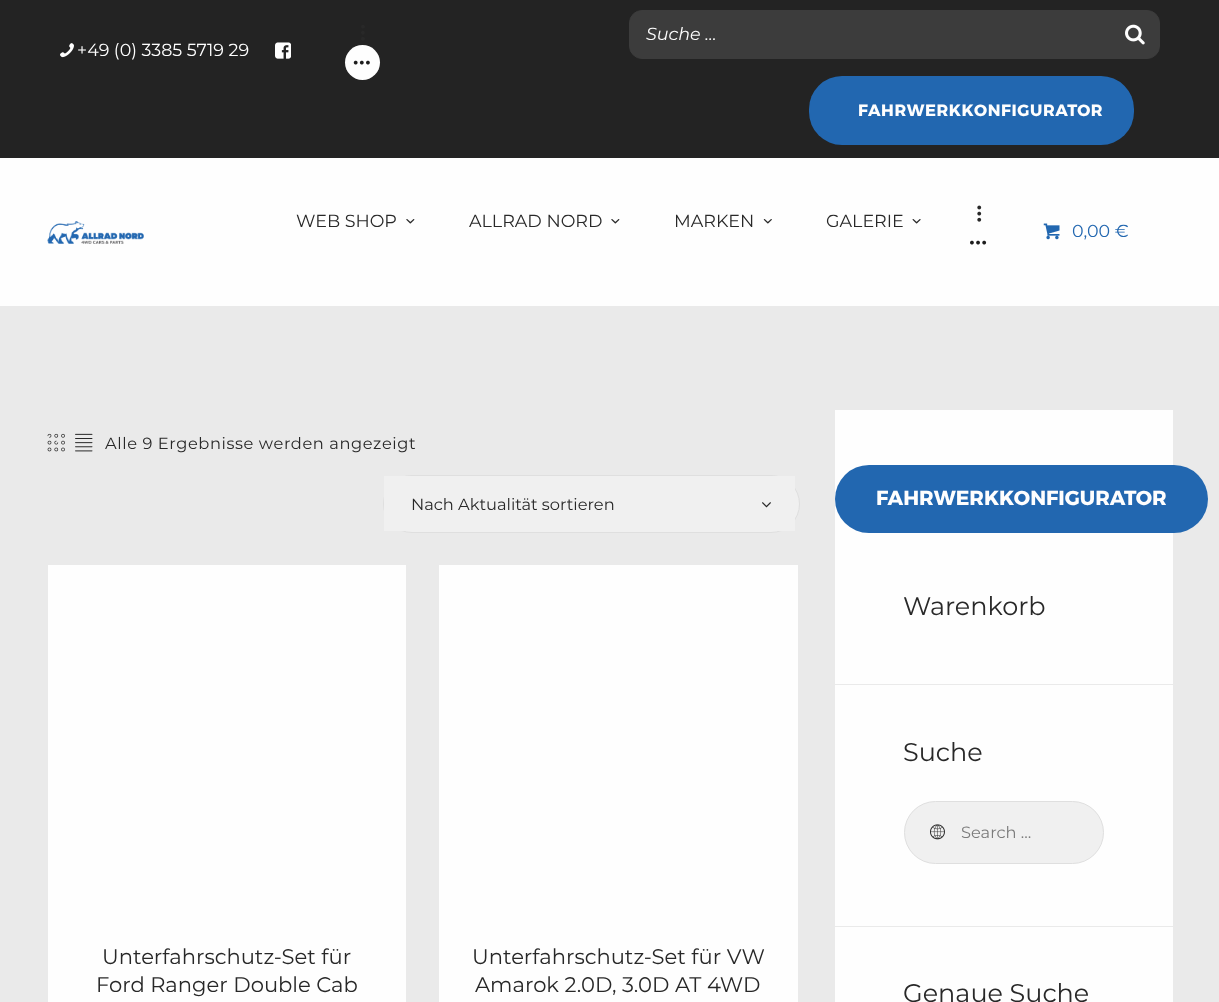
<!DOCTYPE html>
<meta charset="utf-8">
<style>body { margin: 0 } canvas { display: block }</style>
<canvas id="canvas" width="1219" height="1002"></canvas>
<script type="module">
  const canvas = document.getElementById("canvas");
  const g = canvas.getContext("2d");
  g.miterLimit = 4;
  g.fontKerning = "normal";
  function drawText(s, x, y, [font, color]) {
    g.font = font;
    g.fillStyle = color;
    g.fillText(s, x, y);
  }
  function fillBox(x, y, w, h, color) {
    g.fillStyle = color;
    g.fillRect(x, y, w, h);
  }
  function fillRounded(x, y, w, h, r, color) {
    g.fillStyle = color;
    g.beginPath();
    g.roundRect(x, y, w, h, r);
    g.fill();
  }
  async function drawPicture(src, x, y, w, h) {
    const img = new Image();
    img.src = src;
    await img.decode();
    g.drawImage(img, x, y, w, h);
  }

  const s1 = ["17.5px Montserrat", "#FEFEFE"];
  const s2 = ["italic 17.5px Montserrat", "#FEFEFE"];
  const s3 = ["bold 16.25px Montserrat", "#FEFEFE"];
  const s4 = ["17.5px Montserrat", "#282828"];
  const s5 = ["17.5px Montserrat", "#2267B0"];
  const s6 = ["16.25px Montserrat", "#282828"];
  const s7 = ["21.1px Montserrat", "#282828"];
  const s8 = ["bold 20.25px Montserrat", "#FEFEFE"];
  const s9 = ["25.5px Montserrat", "#282828"];
  const s10 = ["16.25px Montserrat", "#7B7B7B"];

  fillBox(0, 0, 1219, 1002, "#EAEAEA");
  fillBox(0, 0, 1219, 158, "#232323");
  await drawPicture("pic1.png", 60, 43, 14, 15);
  drawText("+49 (0) 3385 5719 29", 77, 56, s1);
  await drawPicture("pic2.png", 275, 42, 16, 17);
  await drawPicture("pic3.png", 361, 25, 4, 16);
  g.beginPath();
  g.arc(362.5, 62.5, 17.5, 0, Math.PI * 2);
  g.fill();
  await drawPicture("pic4.png", 353, 60, 17, 5);
  g.fillStyle = "#3C3C3C";
  g.beginPath();
  g.roundRect(629.5, 10.5, 530, 48, 12.5);
  g.fill();
  g.strokeStyle = "#3C3C3C";
  g.stroke();
  drawText("Suche …", 646, 40, s2);
  await drawPicture("pic5.png", 1125, 24, 20, 21);
  fillRounded(809, 76, 325, 69, 33, "#2267B0");
  g.letterSpacing = "0.6px";
  drawText("FAHRWERKKONFIGURATOR", 858, 116, s3);
  fillBox(0, 158, 1219, 148, "#FEFEFE");
  await drawPicture("pic6.png", 47, 221, 97, 23);
  g.letterSpacing = "0px";
  drawText("WEB SHOP", 296, 227, s4);
  await drawPicture("pic7.png", 406, 219, 9, 5);
  drawText("ALLRAD NORD", 469, 227, s4);
  await drawPicture("pic7.png", 611, 219, 9, 5);
  drawText("MARKEN", 674, 227, s4);
  await drawPicture("pic8.png", 763, 219, 9, 5);
  drawText("GALERIE", 826, 227, s4);
  await drawPicture("pic9.png", 912, 219, 9, 5);
  await drawPicture("pic10.png", 977, 205, 5, 17);
  await drawPicture("pic11.png", 970, 240, 17, 5);
  await drawPicture("pic12.png", 1043, 223, 17, 17);
  drawText("0,00 €", 1072, 237, s5);
  await drawPicture("pic13.png", 47, 433, 18, 19);
  await drawPicture("pic14.png", 75, 433, 18, 19);
  g.letterSpacing = "0.6px";
  drawText("Alle 9 Ergebnisse werden angezeigt", 105, 449, s6);
  g.fillStyle = "#F0F0F0";
  g.beginPath();
  g.roundRect(383.5, 475.5, 416, 57, 28.5);
  g.fill();
  g.strokeStyle = "#DFDFDF";
  g.stroke();
  fillBox(384, 476, 411, 55, "#F0F0F0");
  g.letterSpacing = "0px";
  drawText("Nach Aktualität sortieren", 411, 510, s6);
  await drawPicture("pic15.png", 762, 502, 9, 6);
  fillBox(48, 565, 358, 437, "#FEFEFE");
  drawText("Unterfahrschutz-Set für", 102, 964, s7);
  drawText("Ford Ranger Double Cab", 96, 992, s7);
  fillBox(439, 565, 359, 437, "#FEFEFE");
  drawText("Unterfahrschutz-Set für VW", 472, 964, s7);
  drawText("Amarok 2.0D, 3.0D AT 4WD", 475, 992, s7);
  fillBox(835, 410, 338, 592, "#FEFEFE");
  fillRounded(835, 465, 373, 68, 34, "#2267B0");
  drawText("FAHRWERKKONFIGURATOR", 876, 505, s8);
  drawText("Warenkorb", 903, 615, s9);
  fillBox(835, 684, 338, 1, "#EAEAEA");
  drawText("Suche", 903, 761, s9);
  g.fillStyle = "#F0F0F0";
  g.beginPath();
  g.roundRect(904.5, 801.5, 199, 62, 31);
  g.fill();
  g.stroke();
  await drawPicture("pic16.png", 930, 824, 15, 16);
  drawText("Search …", 961, 838, s10);
  fillBox(835, 926, 338, 1, "#EAEAEA");
  drawText("Genaue Suche", 903, 1002, s9);
</script>
